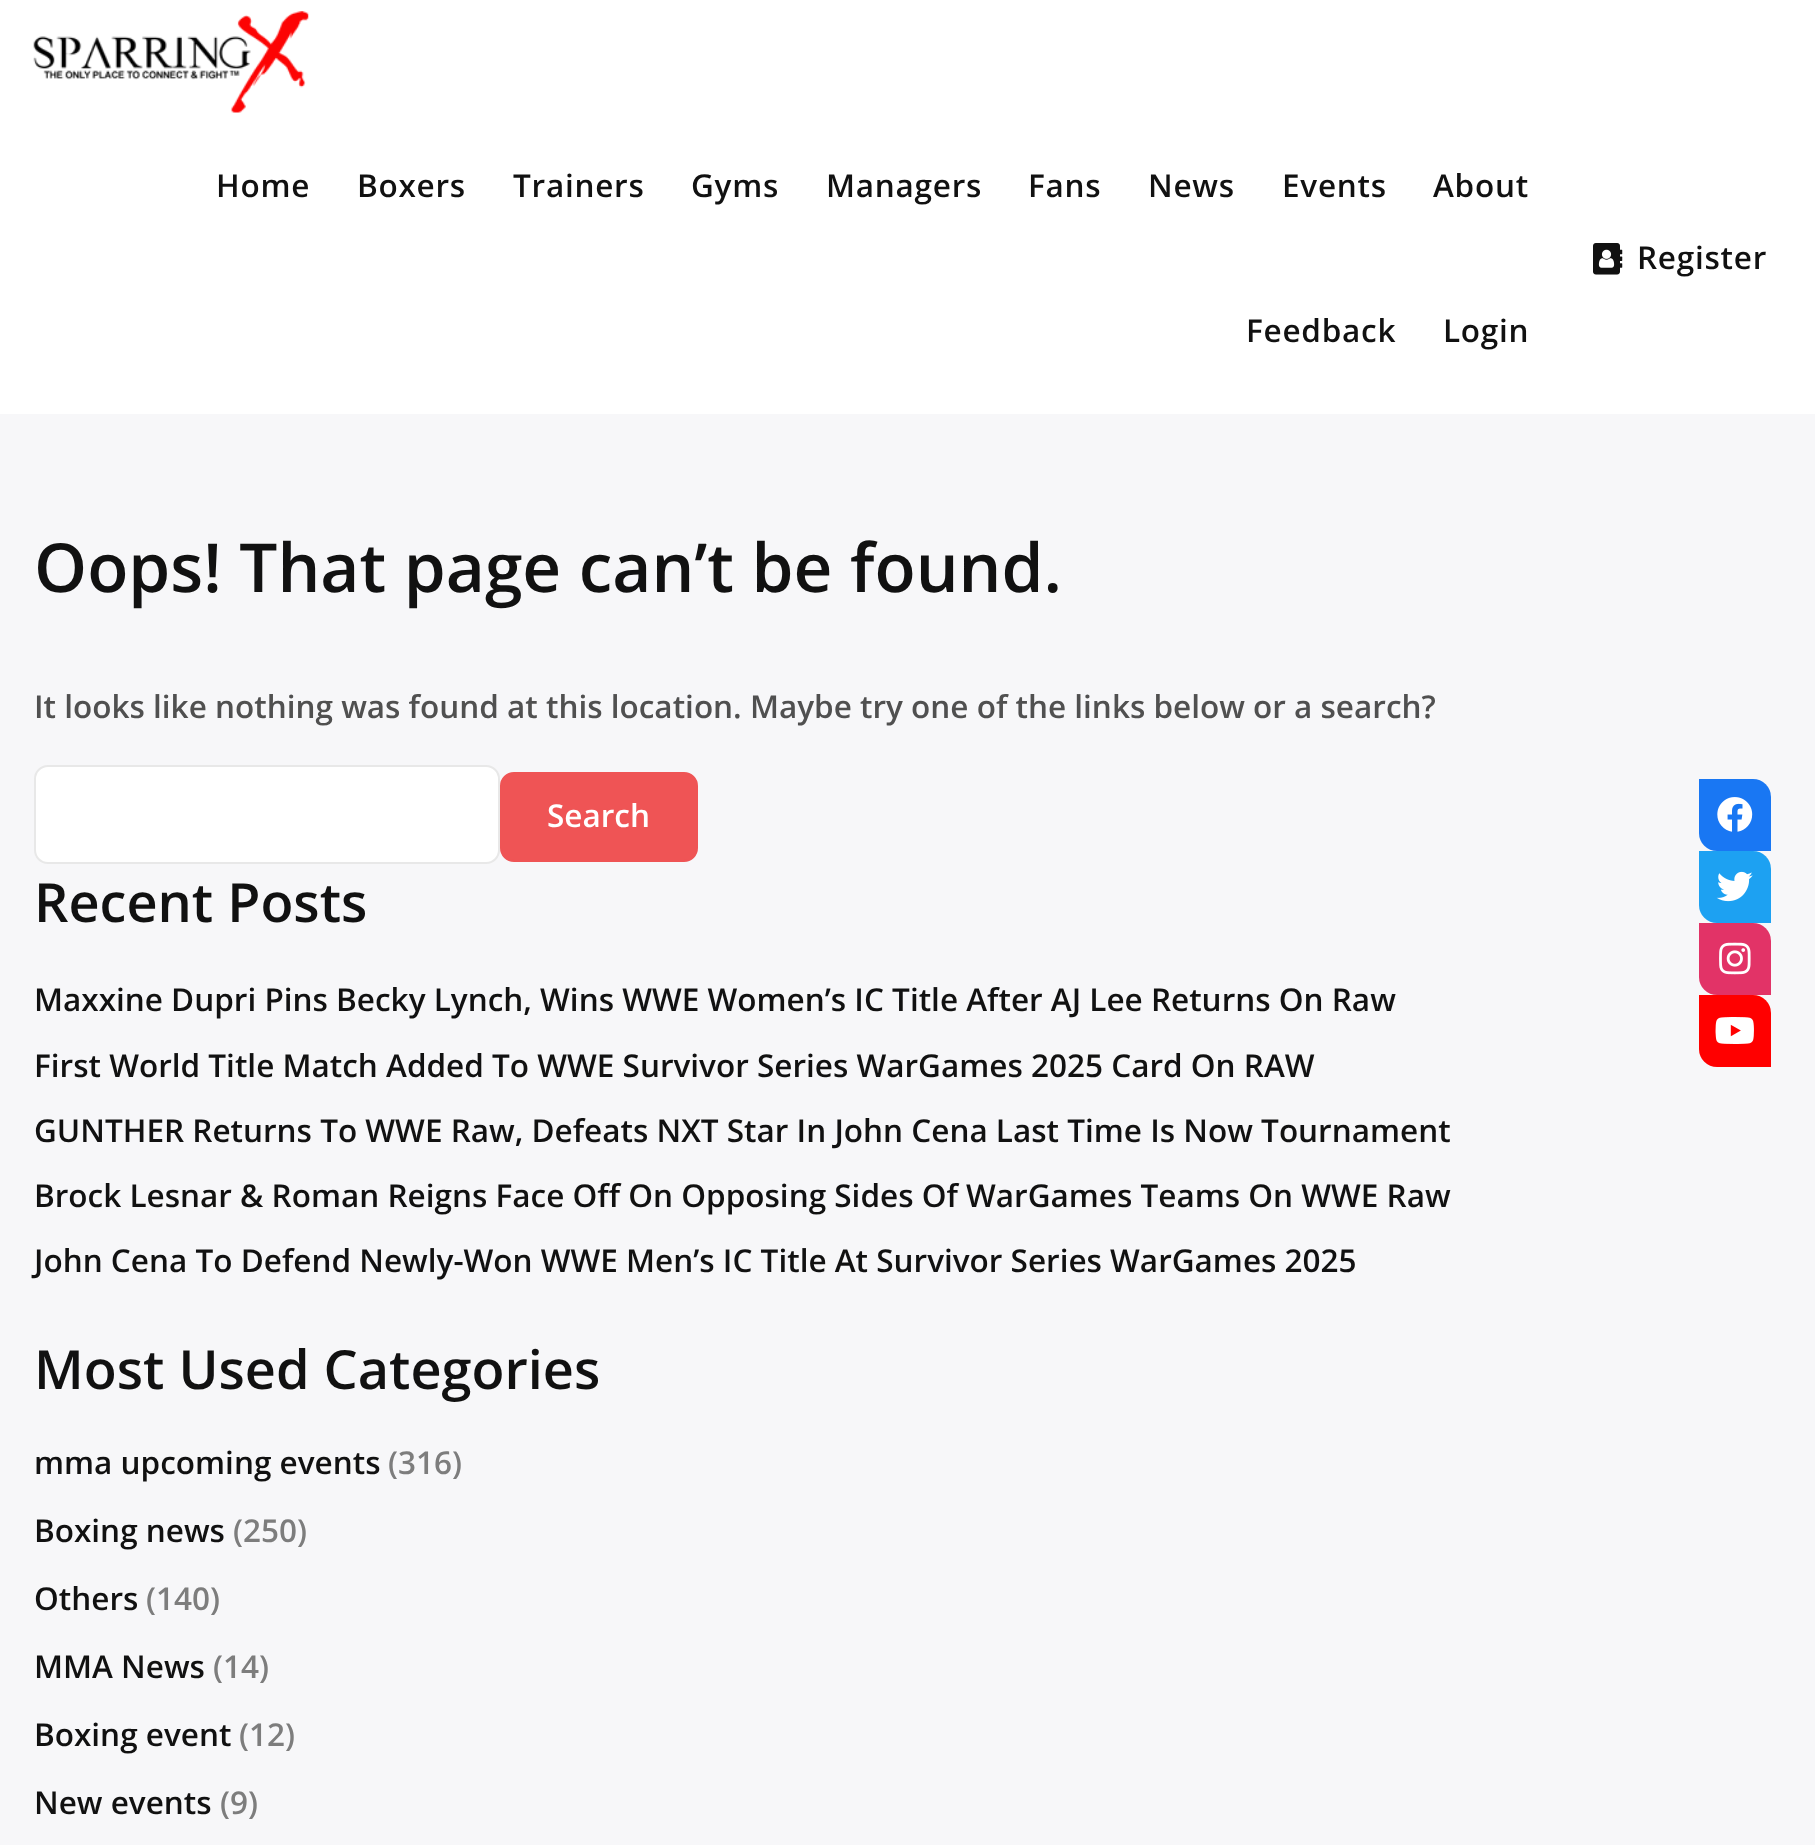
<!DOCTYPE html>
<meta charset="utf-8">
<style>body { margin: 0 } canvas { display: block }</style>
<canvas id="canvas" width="1815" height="1845"></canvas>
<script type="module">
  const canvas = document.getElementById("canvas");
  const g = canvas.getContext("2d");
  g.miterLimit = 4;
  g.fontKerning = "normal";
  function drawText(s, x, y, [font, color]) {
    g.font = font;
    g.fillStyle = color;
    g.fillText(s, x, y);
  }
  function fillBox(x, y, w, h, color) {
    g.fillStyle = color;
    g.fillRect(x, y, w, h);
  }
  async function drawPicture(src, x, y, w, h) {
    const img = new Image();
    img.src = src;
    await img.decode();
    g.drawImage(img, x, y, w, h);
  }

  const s1 = ["600 31.5px Open Sans", "#111111"];
  const s2 = ["600 67.5px Open Sans", "#111111"];
  const s3 = ["600 31.5px Open Sans", "#505050"];
  const s4 = ["600 31.5px Open Sans", "#FFFFFF"];
  const s5 = ["600 54px Open Sans", "#111111"];
  const s6 = ["600 31.5px Open Sans", "#7D7D7D"];

  fillBox(0, 0, 1815, 1845, "#F7F7F9");
  fillBox(0, 0, 1815, 414, "#FFFFFF");
  await drawPicture("pic1.png", 33, 11, 276, 102);
  g.letterSpacing = "0.75px";
  drawText("Home", 216, 197, s1);
  drawText("Boxers", 357, 197, s1);
  drawText("Trainers", 513, 197, s1);
  drawText("Gyms", 691, 197, s1);
  drawText("Managers", 826, 197, s1);
  drawText("Fans", 1028, 197, s1);
  drawText("News", 1148, 197, s1);
  drawText("Events", 1282, 197, s1);
  drawText("About", 1433, 197, s1);
  drawText("Feedback", 1246, 342, s1);
  drawText("Login", 1443, 342, s1);
  await drawPicture("pic2.png", 1593, 243, 30, 32);
  drawText("Register", 1637, 269, s1);
  g.letterSpacing = "0px";
  drawText("Oops! That page can’t be found.", 34, 592, s2);
  drawText("It looks like nothing was found at this location. Maybe try one of the links below or a search?", 34, 718, s3);
  g.fillStyle = "#FFFFFF";
  g.beginPath();
  g.roundRect(35, 766, 464, 97, 13);
  g.fill();
  g.strokeStyle = "#E8E8E8";
  g.lineWidth = 2;
  g.stroke();
  g.fillStyle = "#EF5455";
  g.beginPath();
  g.roundRect(501, 773, 196, 88, 13);
  g.fill();
  g.strokeStyle = "#EF5455";
  g.stroke();
  drawText("Search", 547, 827, s4);
  drawText("Recent Posts", 34, 922, s5);
  drawText("Maxxine Dupri Pins Becky Lynch, Wins WWE Women’s IC Title After AJ Lee Returns On Raw", 34, 1011, s1);
  drawText("First World Title Match Added To WWE Survivor Series WarGames 2025 Card On RAW", 34, 1077, s1);
  drawText("GUNTHER Returns To WWE Raw, Defeats NXT Star In John Cena Last Time Is Now Tournament", 34, 1142, s1);
  drawText("Brock Lesnar & Roman Reigns Face Off On Opposing Sides Of WarGames Teams On WWE Raw", 34, 1207, s1);
  drawText("John Cena To Defend Newly-Won WWE Men’s IC Title At Survivor Series WarGames 2025", 34, 1272, s1);
  drawText("Most Used Categories", 34, 1389, s5);
  drawText("mma upcoming events", 34, 1474, s1);
  drawText("(316)", 388, 1474, s6);
  drawText("Boxing news", 34, 1542, s1);
  drawText("(250)", 233, 1542, s6);
  drawText("Others", 34, 1610, s1);
  drawText("(140)", 146, 1610, s6);
  drawText("MMA News", 34, 1678, s1);
  drawText("(14)", 213, 1678, s6);
  drawText("Boxing event", 34, 1746, s1);
  drawText("(12)", 239, 1746, s6);
  drawText("New events", 34, 1814, s1);
  drawText("(9)", 220, 1814, s6);
  g.fillStyle = "#1977F3";
  g.beginPath();
  g.roundRect(1699, 779, 72, 72, [0, 18, 0, 18]);
  g.fill();
  await drawPicture("pic3.png", 1717, 797, 36, 35);
  g.fillStyle = "#1DA1F2";
  g.beginPath();
  g.roundRect(1699, 851, 72, 72, [0, 18, 0, 18]);
  g.fill();
  await drawPicture("pic4.png", 1716, 871, 37, 31);
  g.fillStyle = "#E23367";
  g.beginPath();
  g.roundRect(1699, 923, 72, 72, [0, 18, 0, 18]);
  g.fill();
  await drawPicture("pic5.png", 1719, 942, 32, 33);
  g.fillStyle = "#FF0000";
  g.beginPath();
  g.roundRect(1699, 995, 72, 72, [0, 18, 0, 18]);
  g.fill();
  await drawPicture("pic6.png", 1715, 1017, 39, 27);
</script>
